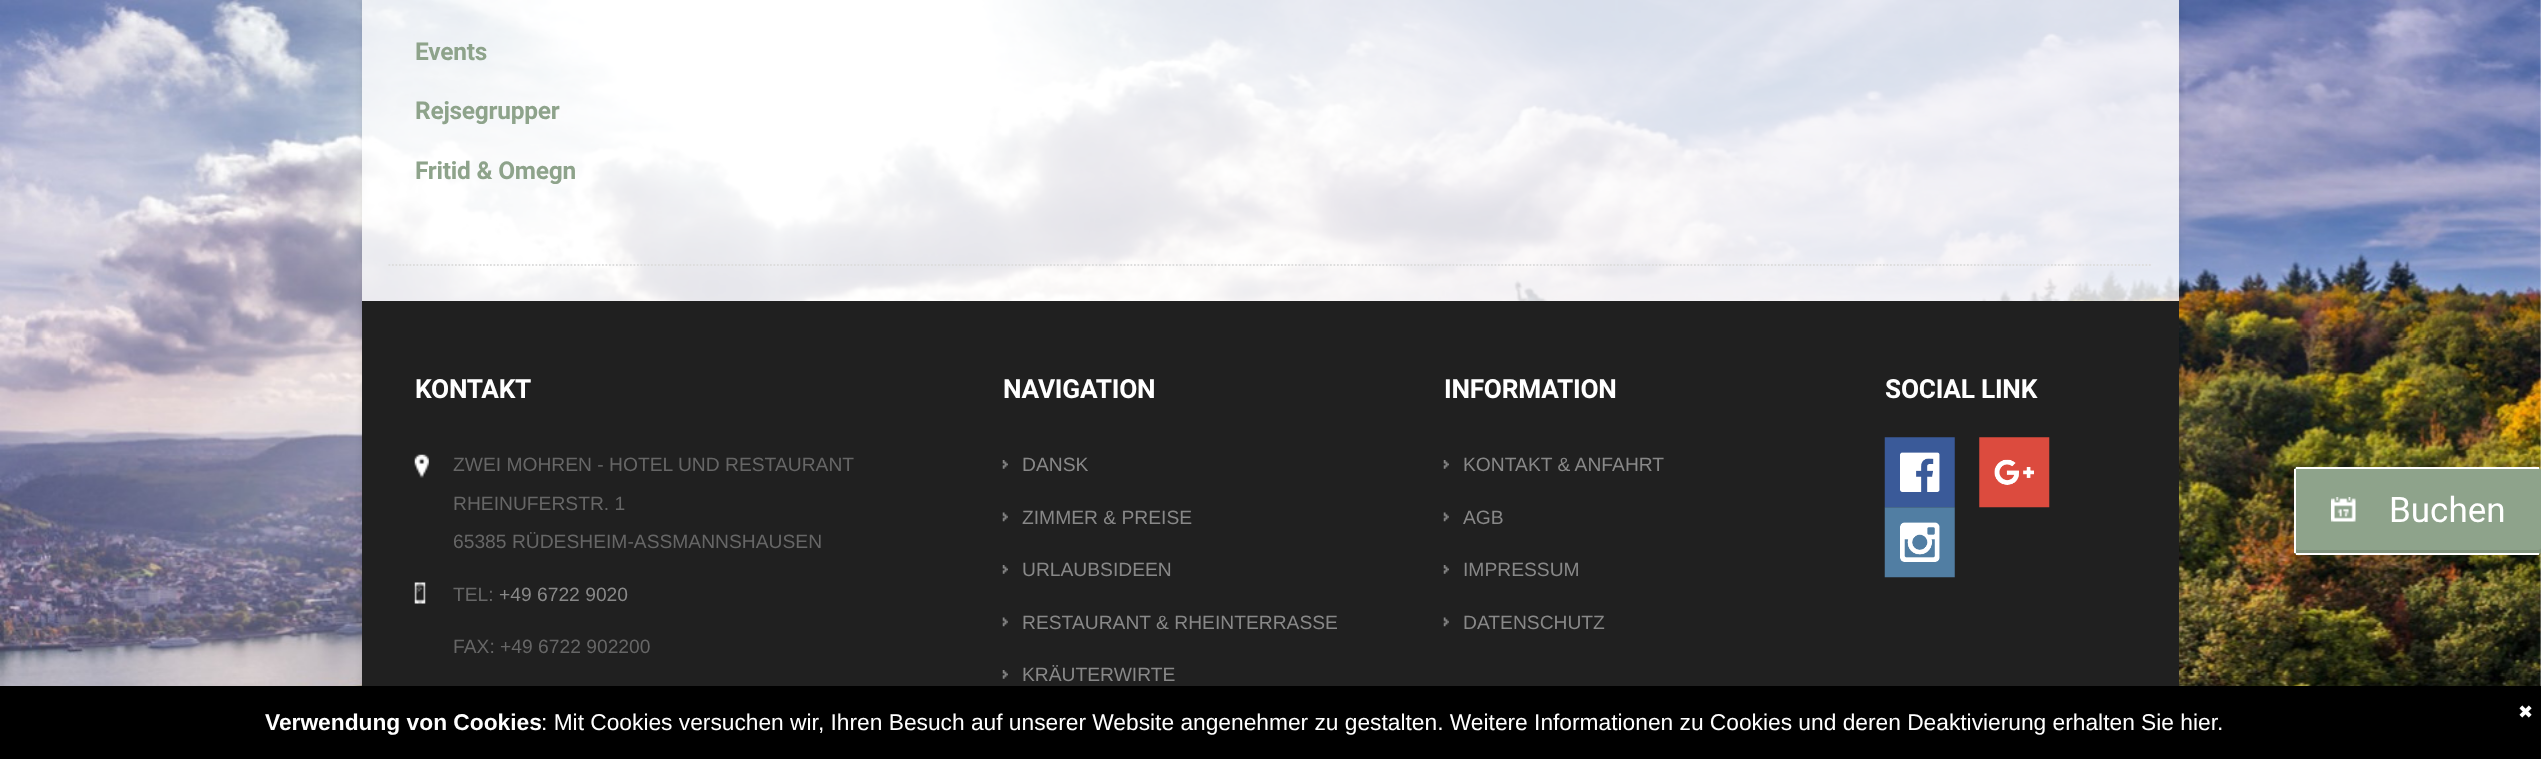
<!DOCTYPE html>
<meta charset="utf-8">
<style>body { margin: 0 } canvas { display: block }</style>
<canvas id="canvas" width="2541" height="759"></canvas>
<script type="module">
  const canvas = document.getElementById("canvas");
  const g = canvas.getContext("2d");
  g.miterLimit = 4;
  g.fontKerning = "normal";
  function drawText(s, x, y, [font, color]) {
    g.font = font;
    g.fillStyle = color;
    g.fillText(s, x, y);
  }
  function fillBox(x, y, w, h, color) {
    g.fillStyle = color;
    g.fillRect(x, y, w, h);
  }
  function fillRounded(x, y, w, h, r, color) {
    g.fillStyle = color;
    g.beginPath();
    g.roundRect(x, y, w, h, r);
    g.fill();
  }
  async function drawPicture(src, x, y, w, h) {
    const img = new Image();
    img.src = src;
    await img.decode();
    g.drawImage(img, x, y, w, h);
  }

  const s1 = ["bold 24.5px Roboto", "#8EA38B"];
  const s2 = ["bold 26.25px Roboto", "#FFFFFF"];
  const s3 = ["19.25px Liberation Sans", "#666666"];
  const s4 = ["19.25px Liberation Sans", "#888888"];
  const s5 = ["35px Roboto", "#FFFFFF"];
  const s6 = ["18px DejaVu Sans", "#FFFFFF"];
  const s7 = ["bold 22.75px Liberation Sans", "#FFFFFF"];
  const s8 = ["22.75px Liberation Sans", "#FFFFFF"];

  fillBox(0, 0, 2541, 759, "#FFFFFF");
  await drawPicture("pic1.png", 0, 0, 2541, 686);
  g.save();
  g.beginPath();
  g.moveTo(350, 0);
  g.lineTo(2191, 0);
  g.lineTo(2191, 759);
  g.lineTo(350, 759);
  g.closePath();
  g.moveTo(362, -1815);
  g.lineTo(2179, -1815);
  g.lineTo(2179, 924);
  g.lineTo(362, 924);
  g.closePath();
  g.clip("evenodd");
  g.fillStyle = "rgba(0, 0, 0, 0.1)";
  g.filter = "blur(3.5px)";
  g.beginPath();
  g.rect(362, -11, 1817, 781);
  g.fill();
  g.filter = "none";
  g.restore();
  fillBox(362, 0, 1817, 301, "rgba(255, 255, 255, 0.8)");
  g.beginPath();
  g.moveTo(388.5, 265);
  g.lineTo(2152.5, 265);
  g.strokeStyle = "#DDDDDD";
  g.lineWidth = 1.8;
  g.setLineDash([1.75, 1.75]);
  g.stroke();
  g.letterSpacing = "-0.25px";
  drawText("Events", 415, 60, s1);
  drawText("Rejsegrupper", 415, 119, s1);
  drawText("Fritid & Omegn", 415, 179, s1);
  fillBox(362, 301, 1817, 385, "#202020");
  drawText("KONTAKT", 415, 398, s2);
  await drawPicture("pic2.png", 414, 454, 15, 24);
  g.letterSpacing = "0px";
  drawText("ZWEI MOHREN - HOTEL UND RESTAURANT", 453, 471, s3);
  drawText("RHEINUFERSTR. 1", 453, 510, s3);
  drawText("65385 RÜDESHEIM-ASSMANNSHAUSEN", 453, 548, s3);
  await drawPicture("pic3.png", 414, 582, 12, 22);
  drawText("TEL:", 453, 601, s3);
  drawText("+49 6722 9020", 499, 601, s4);
  drawText("FAX: +49 6722 902200", 453, 653, s3);
  g.letterSpacing = "-0.25px";
  drawText("NAVIGATION", 1003, 398, s2);
  await drawPicture("pic4.png", 1002, 460, 6, 9);
  g.letterSpacing = "0px";
  drawText("DANSK", 1022, 471, s4);
  await drawPicture("pic5.png", 1002, 512, 6, 10);
  drawText("ZIMMER & PREISE", 1022, 524, s4);
  await drawPicture("pic4.png", 1002, 565, 6, 9);
  drawText("URLAUBSIDEEN", 1022, 576, s4);
  await drawPicture("pic5.png", 1002, 617, 6, 10);
  drawText("RESTAURANT & RHEINTERRASSE", 1022, 629, s4);
  await drawPicture("pic4.png", 1002, 670, 6, 9);
  drawText("KRÄUTERWIRTE", 1022, 681, s4);
  g.letterSpacing = "-0.25px";
  drawText("INFORMATION", 1444, 398, s2);
  await drawPicture("pic4.png", 1443, 460, 6, 9);
  g.letterSpacing = "0px";
  drawText("KONTAKT & ANFAHRT", 1463, 471, s4);
  await drawPicture("pic5.png", 1443, 512, 6, 10);
  drawText("AGB", 1463, 524, s4);
  await drawPicture("pic4.png", 1443, 565, 6, 9);
  drawText("IMPRESSUM", 1463, 576, s4);
  await drawPicture("pic5.png", 1443, 617, 6, 10);
  drawText("DATENSCHUTZ", 1463, 629, s4);
  g.letterSpacing = "-0.25px";
  drawText("SOCIAL LINK", 1885, 398, s2);
  await drawPicture("pic6.png", 1884, 437, 71, 71);
  await drawPicture("pic7.png", 1979, 437, 71, 71);
  await drawPicture("pic8.png", 1884, 507, 71, 71);
  fillRounded(2294, 467, 247, 88, 4, "#8EA38B");
  await drawPicture("pic9.png", 2331, 497, 25, 25);
  g.fillStyle = "rgba(0, 0, 0, 0.1)";
  g.beginPath();
  g.moveTo(2296, 548);
  g.bezierCurveTo(2296, 549, 2295, 552, 2297, 553);
  g.lineTo(2538, 553);
  g.bezierCurveTo(2541, 553, 2541, 551, 2541, 548);
  g.bezierCurveTo(2541, 549, 2539, 550, 2538, 550);
  g.lineTo(2298, 550);
  g.bezierCurveTo(2297, 550, 2296, 549, 2296, 548);
  g.closePath();
  g.fill();
  fillBox(2296, 467, 243, 2, "#FFFFFF");
  fillBox(2296, 553, 243, 2, "#FFFFFF");
  fillBox(2294, 469, 2, 84, "#FFFFFF");
  g.letterSpacing = "0px";
  drawText("Buchen", 2389, 522, s5);
  fillBox(0, 686, 2541, 73, "#000000");
  drawText("✖", 2518, 718, s6);
  drawText("Verwendung von Cookies", 265, 730, s7);
  drawText(": Mit Cookies versuchen wir, Ihren Besuch auf unserer Website angenehmer zu gestalten. Weitere Informationen zu Cookies und deren Deaktivierung erhalten Sie hier", 541, 730, s8);
  drawText(".", 2217, 730, s8);
</script>
